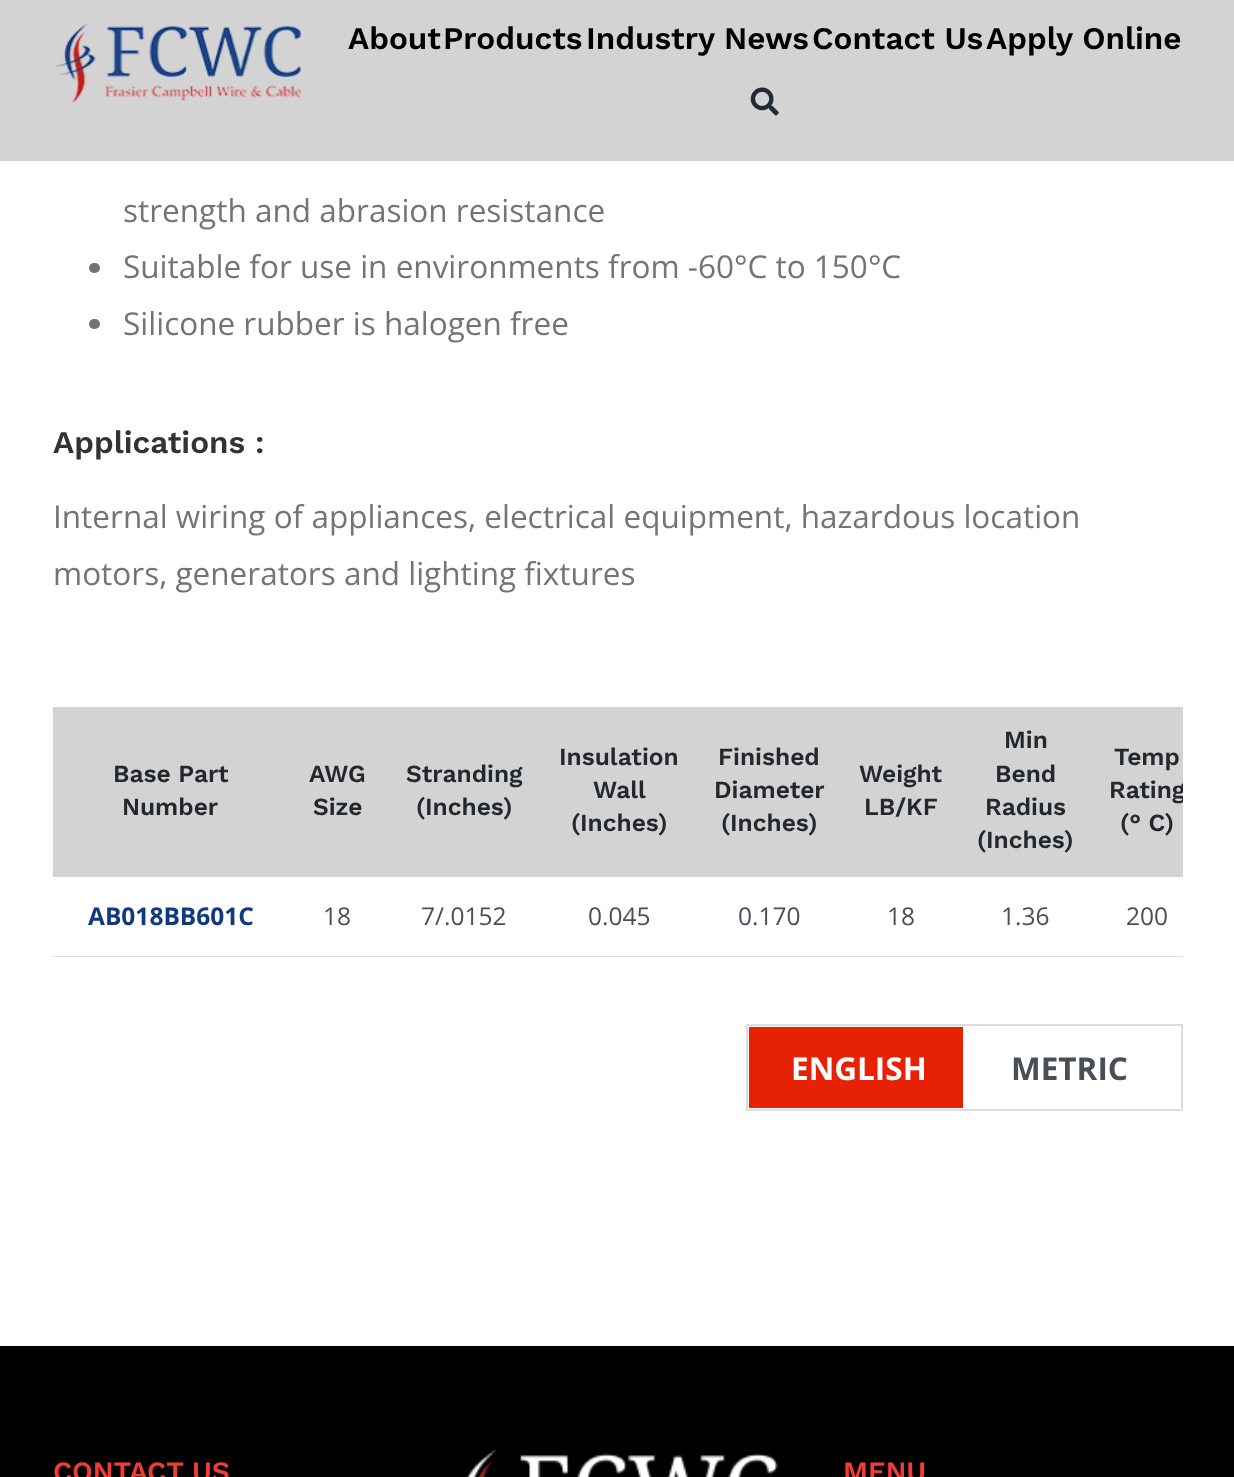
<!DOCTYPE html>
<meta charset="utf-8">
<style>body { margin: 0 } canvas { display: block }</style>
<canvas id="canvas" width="1234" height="1477"></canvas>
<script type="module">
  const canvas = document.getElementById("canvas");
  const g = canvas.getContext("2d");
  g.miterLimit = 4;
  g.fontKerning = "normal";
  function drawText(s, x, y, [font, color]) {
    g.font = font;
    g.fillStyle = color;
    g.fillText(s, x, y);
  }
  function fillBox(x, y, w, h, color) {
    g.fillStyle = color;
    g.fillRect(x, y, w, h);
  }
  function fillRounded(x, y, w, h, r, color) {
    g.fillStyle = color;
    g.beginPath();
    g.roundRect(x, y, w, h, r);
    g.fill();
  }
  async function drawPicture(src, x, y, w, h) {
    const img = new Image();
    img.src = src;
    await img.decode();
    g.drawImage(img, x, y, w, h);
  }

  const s1 = ["600 31.5px Work Sans", "#000000"];
  const s2 = ["31.5px Open Sans", "#747474"];
  const s3 = ["600 31.5px Work Sans", "#333333"];
  const s4 = ["600 24.5px Work Sans", "#23282D"];
  const s5 = ["bold 24.5px Open Sans", "#123980"];
  const s6 = ["24.5px Open Sans", "#4A4E57"];
  const s7 = ["bold 31.5px Open Sans", "#FFFFFF"];
  const s8 = ["bold 31.5px Open Sans", "#4A4E57"];
  const s9 = ["600 28px Work Sans", "#F13C35"];

  fillBox(0, 0, 1234, 1477, "#FFFFFF");
  fillBox(0, 0, 1234, 161, "#D3D3D3");
  await drawPicture("pic1.png", 54, 23, 247, 80);
  drawText("About", 348, 49, s1);
  drawText("Products", 443, 49, s1);
  drawText("Industry News", 586, 49, s1);
  drawText("Contact Us", 812, 49, s1);
  drawText("Apply Online", 986, 49, s1);
  await drawPicture("pic2.png", 750, 87, 29, 29);
  drawText("strength and abrasion resistance", 123, 222, s2);
  fillRounded(89, 263, 11, 10, 5, "#747474");
  drawText("Suitable for use in environments from -60°C to 150°C", 123, 278, s2);
  fillRounded(89, 319, 11, 10, 5, "#747474");
  drawText("Silicone rubber is halogen free", 123, 335, s2);
  drawText("Applications :", 53, 453, s3);
  drawText("Internal wiring of appliances, electrical equipment, hazardous location", 53, 528, s2);
  drawText("motors, generators and lighting fixtures", 53, 585, s2);
  fillBox(53, 707, 1130, 170, "#D3D3D3");
  drawText("Base Part", 113, 782, s4);
  drawText("Number", 122, 815, s4);
  drawText("AWG", 309, 782, s4);
  drawText("Size", 313, 815, s4);
  drawText("Stranding", 406, 782, s4);
  drawText("(Inches)", 416, 815, s4);
  drawText("Insulation", 559, 765, s4);
  drawText("Wall", 593, 798, s4);
  drawText("(Inches)", 571, 831, s4);
  drawText("Finished", 718, 765, s4);
  drawText("Diameter", 714, 798, s4);
  drawText("(Inches)", 721, 831, s4);
  drawText("Weight", 859, 782, s4);
  drawText("LB/KF", 864, 815, s4);
  drawText("Min", 1004, 748, s4);
  drawText("Bend", 995, 782, s4);
  drawText("Radius", 985, 815, s4);
  drawText("(Inches)", 977, 848, s4);
  drawText("Temp", 1114, 765, s4);
  g.save();
  g.beginPath();
  g.rect(53, 707, 1130, 250);
  g.clip();
  drawText("Rating", 1109, 798, s4);
  g.restore();
  drawText("(° C)", 1120, 831, s4);
  drawText("AB018BB601C", 88, 925, s5);
  drawText("18", 323, 925, s6);
  drawText("7/.0152", 421, 925, s6);
  drawText("0.045", 588, 925, s6);
  drawText("0.170", 738, 925, s6);
  drawText("18", 887, 925, s6);
  drawText("1.36", 1001, 925, s6);
  fillBox(53, 956, 1130, 1, "#DCDCDC");
  drawText("200", 1126, 925, s6);
  g.strokeStyle = "#DDDDDD";
  g.lineWidth = 2;
  g.strokeRect(747, 1025, 435, 85);
  fillBox(749, 1027, 214, 81, "#E72104");
  drawText("ENGLISH", 791, 1080, s7);
  drawText("METRIC", 1011, 1080, s8);
  fillBox(0, 1346, 1234, 131, "#000000");
  drawText("CONTACT US", 53, 1481, s9);
  await drawPicture("pic3.png", 466, 1450, 312, 27);
  drawText("MENU", 843, 1481, s9);
</script>
